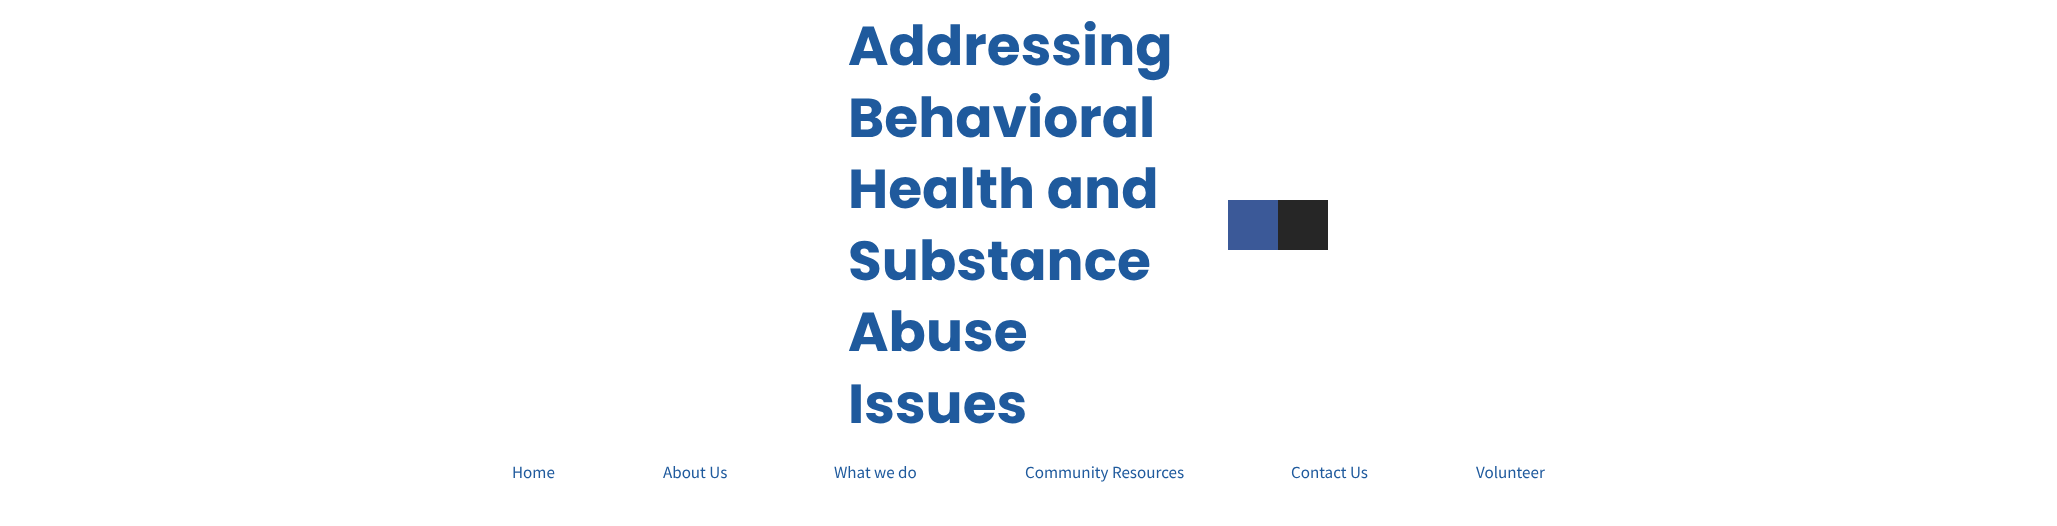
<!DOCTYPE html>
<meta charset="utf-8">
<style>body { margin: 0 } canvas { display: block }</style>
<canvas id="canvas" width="2057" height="526"></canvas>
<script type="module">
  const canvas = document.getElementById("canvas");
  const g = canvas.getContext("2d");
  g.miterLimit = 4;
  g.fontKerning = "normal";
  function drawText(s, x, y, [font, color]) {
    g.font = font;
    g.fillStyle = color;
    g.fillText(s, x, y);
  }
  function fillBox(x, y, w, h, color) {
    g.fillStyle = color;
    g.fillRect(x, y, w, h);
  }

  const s1 = ["bold 55px Poppins", "#1F5A9D"];
  const s2 = ["17px Source Sans Pro", "#1F5A9D"];

  fillBox(0, 0, 2057, 526, "#FFFFFF");
  drawText("Addressing", 848, 65, s1);
  drawText("Behavioral", 848, 137, s1);
  drawText("Health and", 848, 208, s1);
  drawText("Substance", 848, 280, s1);
  drawText("Abuse", 848, 351, s1);
  drawText("Issues", 848, 423, s1);
  fillBox(1228, 200, 50, 50, "#3B5998");
  fillBox(1278, 200, 50, 50, "#262626");
  drawText("Home", 512, 478, s2);
  drawText("About Us", 663, 478, s2);
  drawText("What we do", 834, 478, s2);
  drawText("Community Resources", 1025, 478, s2);
  drawText("Contact Us", 1291, 478, s2);
  drawText("Volunteer", 1476, 478, s2);
</script>
